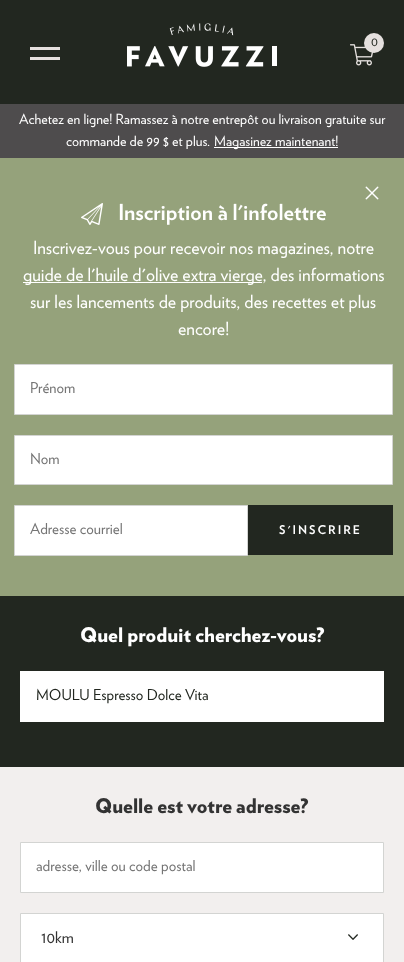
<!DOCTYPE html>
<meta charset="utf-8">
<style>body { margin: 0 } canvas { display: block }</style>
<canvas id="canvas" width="404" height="962"></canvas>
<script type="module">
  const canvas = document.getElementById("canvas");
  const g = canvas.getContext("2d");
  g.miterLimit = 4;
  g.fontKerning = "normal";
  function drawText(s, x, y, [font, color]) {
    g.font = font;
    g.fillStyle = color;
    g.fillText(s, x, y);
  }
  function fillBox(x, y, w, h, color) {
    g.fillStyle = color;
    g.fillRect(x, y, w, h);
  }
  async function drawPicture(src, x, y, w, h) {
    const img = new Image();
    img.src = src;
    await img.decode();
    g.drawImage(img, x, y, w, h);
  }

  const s1 = ["13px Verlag", "#222720"];
  const s2 = ["14px Verlag", "#FFFFFF"];
  const s3 = ["bold 22px Verlag", "#FFFFFF"];
  const s4 = ["18px Verlag", "#FFFFFF"];
  const s5 = ["15px Verlag", "#757575"];
  const s6 = ["bold 12px Verlag", "#FFFFFF"];
  const s7 = ["900 20px Verlag", "#FFFFFF"];
  const s8 = ["15px Verlag", "#222720"];
  const s9 = ["900 20px Verlag", "#333333"];
  const s10 = ["16px Verlag", "#333333"];

  fillBox(0, 0, 404, 962, "#F2EFEE");
  fillBox(0, 0, 404, 104, "#222720");
  await drawPicture("pic1.png", 127, 23, 150, 44);
  await drawPicture("pic2.png", 350, 44, 24, 22);
  g.fillStyle = "#E5E0DE";
  g.beginPath();
  g.arc(374, 43, 10, 0, Math.PI * 2);
  g.fill();
  drawText("0", 371, 46, s1);
  fillBox(30, 47, 30, 3, "#E5E0DE");
  fillBox(30, 57, 30, 3, "#E5E0DE");
  fillBox(0, 104, 404, 54, "#4E4C4D");
  drawText("Achetez en ligne! Ramassez à notre entrepôt ou livraison gratuite sur", 19, 124, s2);
  drawText("commande de 99 $ et plus.", 66, 146, s2);
  fillBox(214, 147, 124, 1, "#FFFFFF");
  drawText("Magasinez maintenant!", 214, 146, s2);
  fillBox(0, 158, 404, 438, "#95A27B");
  await drawPicture("pic3.png", 365, 186, 14, 14);
  await drawPicture("pic4.png", 81, 203, 22, 22);
  drawText("Inscription à l'infolettre", 118, 220, s3);
  drawText("Inscrivez-vous pour recevoir nos magazines, notre", 33, 254, s4);
  fillBox(23, 282, 239, 1, "#FFFFFF");
  drawText("guide de l'huile d'olive extra vierge, des informations", 23, 281, s4);
  drawText("sur les lancements de produits, des recettes et plus", 30, 308, s4);
  drawText("encore!", 178, 335, s4);
  g.beginPath();
  g.rect(14.5, 364.5, 378, 50);
  g.fill();
  g.strokeStyle = "#D3D4D2";
  g.stroke();
  drawText("Prénom", 30, 393, s5);
  g.fillStyle = "#FFFFFF";
  g.beginPath();
  g.rect(14.5, 435.5, 378, 49);
  g.fill();
  g.stroke();
  drawText("Nom", 30, 464, s5);
  g.fillStyle = "#FFFFFF";
  g.beginPath();
  g.rect(14.5, 505.5, 233, 50);
  g.fill();
  g.stroke();
  drawText("Adresse courriel", 30, 534, s5);
  fillBox(248, 505, 145, 50, "#222720");
  g.letterSpacing = "2px";
  drawText("S'INSCRIRE", 279, 534, s6);
  fillBox(0, 596, 404, 171, "#222720");
  g.letterSpacing = "0px";
  drawText("Quel produit cherchez-vous?", 80, 642, s7);
  fillBox(20, 671, 364, 51, "#FFFFFF");
  drawText("MOULU Espresso Dolce Vita", 36, 700, s8);
  drawText("Quelle est votre adresse?", 95, 813, s9);
  g.fillStyle = "#FFFFFF";
  g.beginPath();
  g.rect(20.5, 842.5, 363, 50);
  g.fill();
  g.stroke();
  drawText("adresse, ville ou code postal", 36, 871, s5);
  g.fillStyle = "#FFFFFF";
  g.beginPath();
  g.rect(20.5, 913.5, 363, 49);
  g.fill();
  g.stroke();
  drawText("10km", 41, 943, s10);
  await drawPicture("pic5.png", 348, 934, 10, 6);
</script>
